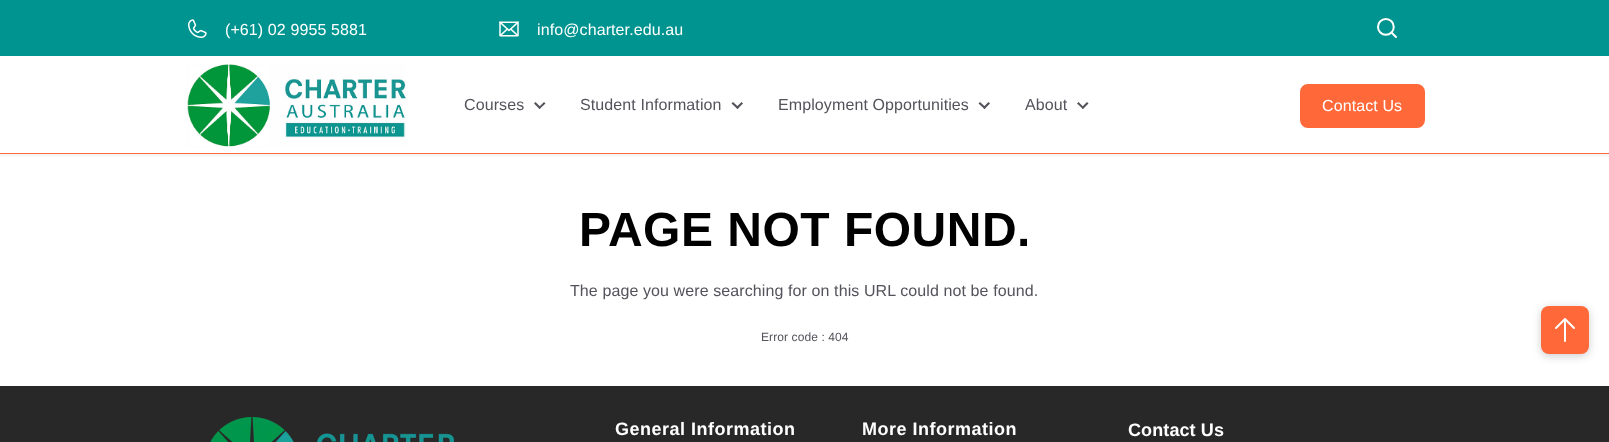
<!DOCTYPE html>
<meta charset="utf-8">
<style>body { margin: 0 } canvas { display: block }</style>
<canvas id="canvas" width="1609" height="442"></canvas>
<script type="module">
  const canvas = document.getElementById("canvas");
  const g = canvas.getContext("2d");
  g.miterLimit = 4;
  g.fontKerning = "normal";
  function drawText(s, x, y, [font, color]) {
    g.font = font;
    g.fillStyle = color;
    g.fillText(s, x, y);
  }
  function fillBox(x, y, w, h, color) {
    g.fillStyle = color;
    g.fillRect(x, y, w, h);
  }
  function fillRounded(x, y, w, h, r, color) {
    g.fillStyle = color;
    g.beginPath();
    g.roundRect(x, y, w, h, r);
    g.fill();
  }
  async function drawPicture(src, x, y, w, h) {
    const img = new Image();
    img.src = src;
    await img.decode();
    g.drawImage(img, x, y, w, h);
  }

  const s1 = ["16px Liberation Sans", "#FFFFFF"];
  const s2 = ["16px Liberation Sans", "#53535B"];
  const s3 = ["bold 48px Liberation Sans", "#000000"];
  const s4 = ["12px Liberation Sans", "#53535B"];
  const s5 = ["bold 18px Liberation Sans", "#FFFFFF"];

  fillBox(0, 0, 1609, 442, "#FFFFFF");
  g.save();
  g.beginPath();
  g.rect(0, 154, 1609, 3);
  g.clip();
  g.fillStyle = "rgba(0, 0, 0, 0.2)";
  g.filter = "blur(5px)";
  g.beginPath();
  g.rect(-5, -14, 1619, 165);
  g.fill();
  g.filter = "none";
  g.restore();
  fillBox(0, 0, 1609, 56, "#009490");
  await drawPicture("pic1.png", 188, 19, 19, 19);
  g.letterSpacing = "0.1px";
  drawText("(+61) 02 9955 5881", 225, 35, s1);
  await drawPicture("pic2.png", 499, 21, 20, 16);
  drawText("info@charter.edu.au", 537, 35, s1);
  await drawPicture("pic3.png", 1377, 18, 20, 20);
  await drawPicture("pic4.png", 187, 64, 219, 83);
  drawText("Courses", 464, 110, s2);
  g.beginPath();
  g.moveTo(544, 102);
  g.lineTo(545.5, 103.5);
  g.lineTo(539.5, 109);
  g.lineTo(538.5, 107.5);
  g.closePath();
  g.fill();
  g.beginPath();
  g.moveTo(535.5, 102);
  g.lineTo(541, 107.5);
  g.lineTo(539.5, 109);
  g.lineTo(534, 103.5);
  g.closePath();
  g.fill();
  drawText("Student Information", 580, 110, s2);
  g.beginPath();
  g.moveTo(741.5, 102);
  g.lineTo(743, 103.5);
  g.lineTo(737.5, 109);
  g.lineTo(736, 107.5);
  g.closePath();
  g.fill();
  g.beginPath();
  g.moveTo(733, 102);
  g.lineTo(739, 107.5);
  g.lineTo(737.5, 109);
  g.lineTo(731.5, 103.5);
  g.closePath();
  g.fill();
  drawText("Employment Opportunities", 778, 110, s2);
  g.beginPath();
  g.moveTo(988.5, 102);
  g.lineTo(990, 103.5);
  g.lineTo(984.5, 109);
  g.lineTo(983, 107.5);
  g.closePath();
  g.fill();
  g.beginPath();
  g.moveTo(980, 102);
  g.lineTo(986, 107.5);
  g.lineTo(984.5, 109);
  g.lineTo(978.5, 103.5);
  g.closePath();
  g.fill();
  drawText("About", 1025, 110, s2);
  g.beginPath();
  g.moveTo(1087, 102);
  g.lineTo(1088.5, 103.5);
  g.lineTo(1083, 109);
  g.lineTo(1081.5, 107.5);
  g.closePath();
  g.fill();
  g.beginPath();
  g.moveTo(1078.5, 102);
  g.lineTo(1084, 107.5);
  g.lineTo(1083, 109);
  g.lineTo(1077, 103.5);
  g.closePath();
  g.fill();
  g.fillStyle = "#FF693A";
  g.beginPath();
  g.roundRect(1301, 85, 123, 42, 7);
  g.fill();
  g.strokeStyle = "#FF693A";
  g.lineWidth = 2;
  g.stroke();
  drawText("Contact Us", 1322, 111, s1);
  fillBox(0, 153, 1609, 1, "#FF693A");
  g.letterSpacing = "0.5px";
  drawText("PAGE NOT FOUND.", 579, 246, s3);
  g.letterSpacing = "0.1px";
  drawText("The page you were searching for on this URL could not be found.", 570, 296, s2);
  drawText("Error code : 404", 761, 341, s4);
  fillBox(0, 386, 1609, 56, "#282828");
  g.fillStyle = "rgba(0, 0, 0, 0.2)";
  g.filter = "blur(4.5px)";
  g.beginPath();
  g.roundRect(1541, 308, 48, 48, 8);
  g.fill();
  g.filter = "none";
  fillRounded(1541, 306, 48, 48, 8, "#FF693A");
  g.beginPath();
  g.moveTo(1565, 341);
  g.lineTo(1565, 319);
  g.moveTo(1574, 328);
  g.lineTo(1565, 319);
  g.lineTo(1556, 328);
  g.strokeStyle = "#FFFFFF";
  g.lineCap = "round";
  g.lineJoin = "round";
  g.stroke();
  await drawPicture("pic5.png", 210, 417, 245, 25);
  g.letterSpacing = "0.5px";
  drawText("General Information", 615, 435, s5);
  drawText("More Information", 862, 435, s5);
  g.letterSpacing = "0.1px";
  drawText("Contact Us", 1128, 436, s5);
</script>
